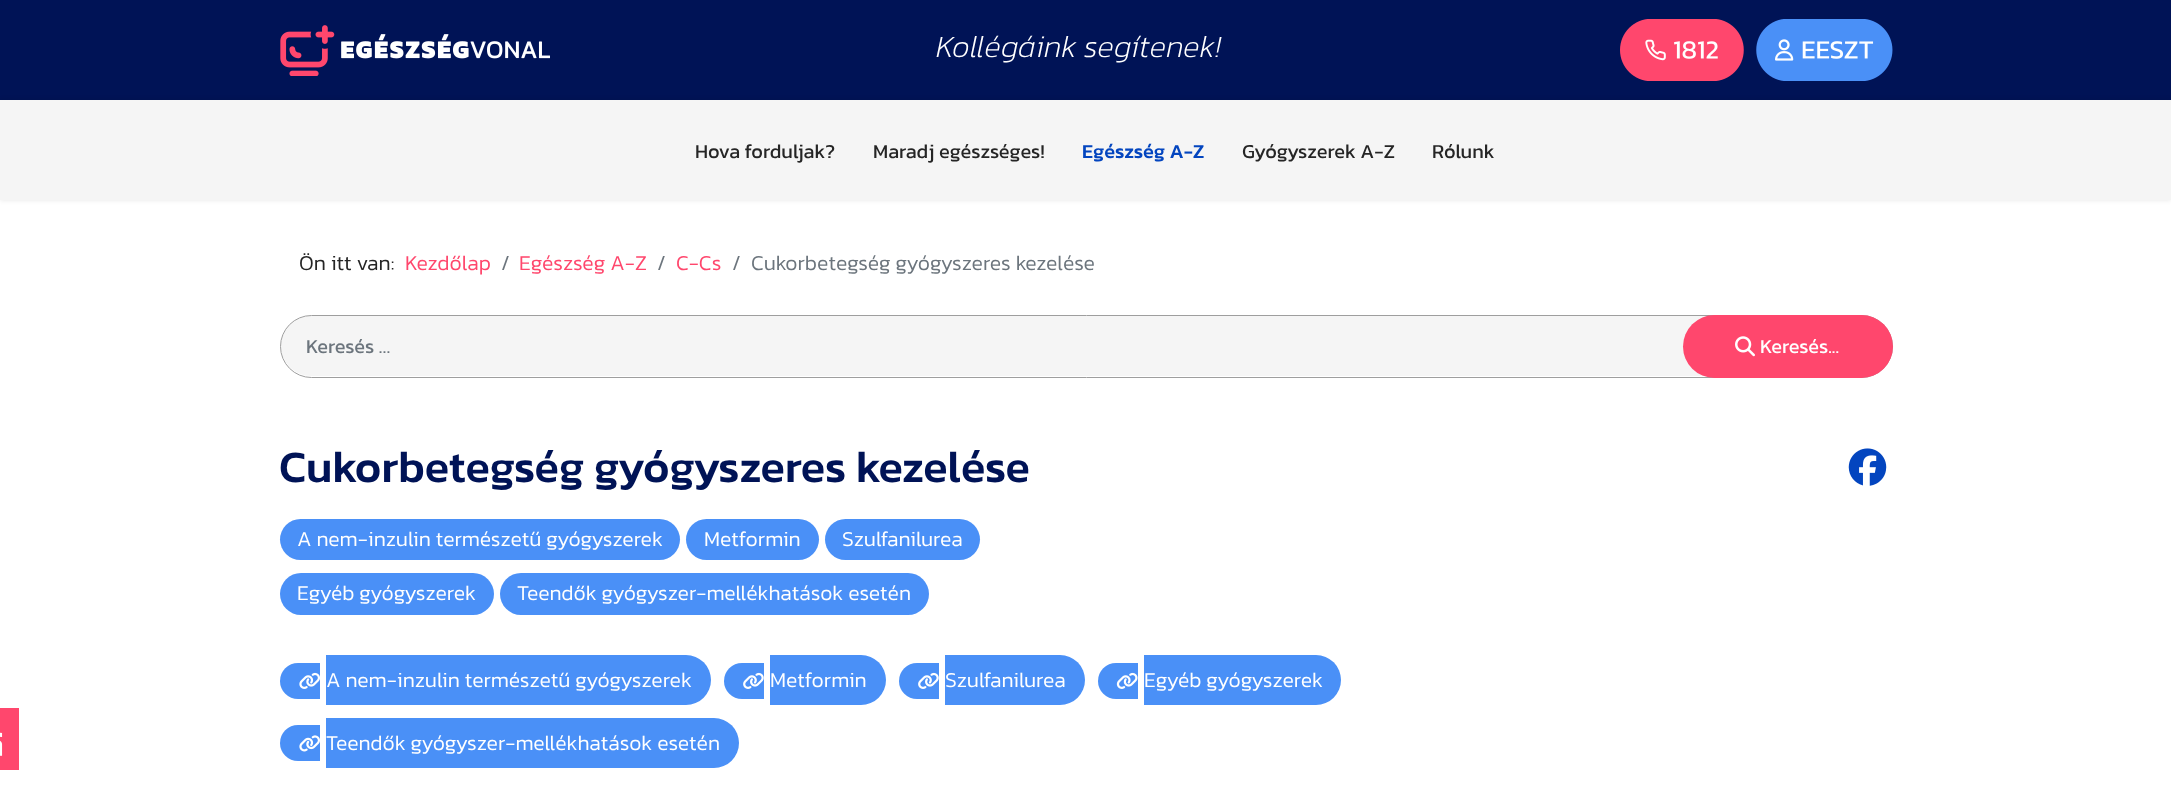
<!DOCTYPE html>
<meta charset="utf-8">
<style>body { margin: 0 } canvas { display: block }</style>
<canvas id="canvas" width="2171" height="794"></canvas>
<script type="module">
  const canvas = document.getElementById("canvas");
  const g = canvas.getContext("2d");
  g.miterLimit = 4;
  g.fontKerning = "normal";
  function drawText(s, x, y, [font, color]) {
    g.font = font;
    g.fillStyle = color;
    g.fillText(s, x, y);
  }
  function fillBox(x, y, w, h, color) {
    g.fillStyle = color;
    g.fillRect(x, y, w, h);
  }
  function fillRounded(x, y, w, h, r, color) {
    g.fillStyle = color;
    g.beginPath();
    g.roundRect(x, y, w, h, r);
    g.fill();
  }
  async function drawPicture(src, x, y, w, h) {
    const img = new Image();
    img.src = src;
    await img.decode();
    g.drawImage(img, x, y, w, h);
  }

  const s1 = ["italic 200 31.25px Kanit", "#FFFFFF"];
  const s2 = ["20px Kanit", "#252525"];
  const s3 = ["500 20px Kanit", "#0345BF"];
  const s4 = ["300 21.25px Kanit", "#252525"];
  const s5 = ["300 21.25px Kanit", "#FF476D"];
  const s6 = ["300 21.25px Kanit", "#6C757D"];
  const s7 = ["20px Kanit", "#6C757D"];
  const s8 = ["20px Kanit", "#FFFFFF"];
  const s9 = ["500 45px Kanit", "#001356"];
  const s10 = ["300 21.25px Kanit", "#FFFFFF"];

  fillBox(0, 0, 2171, 794, "#FFFFFF");
  fillBox(0, 708, 19, 62, "#FF476D");
  await drawPicture("pic1.png", 0, 732, 3, 24);
  fillBox(0, 0, 2171, 100, "#001356");
  await drawPicture("pic2.png", 280, 25, 270, 51);
  drawText("Kollégáink segítenek!", 936, 57, s1);
  await drawPicture("pic3.png", 1620, 19, 124, 62);
  await drawPicture("pic4.png", 1756, 19, 137, 62);
  g.fillStyle = "rgba(0, 0, 0, 0.1)";
  g.filter = "blur(2.5px)";
  g.beginPath();
  g.rect(0, 100, 2171, 100);
  g.fill();
  g.filter = "none";
  fillBox(0, 100, 2171, 100, "#F5F5F5");
  drawText("Hova forduljak?", 695, 158, s2);
  drawText("Maradj egészséges!", 873, 158, s2);
  drawText("Egészség A-Z", 1082, 158, s3);
  drawText("Gyógyszerek A-Z", 1242, 158, s2);
  drawText("Rólunk", 1432, 158, s2);
  drawText("Ön itt van:", 299, 270, s4);
  drawText("Kezdőlap", 405, 270, s5);
  drawText("/", 501, 270, s6);
  drawText("Egészség A-Z", 519, 270, s5);
  drawText("/", 657, 270, s6);
  drawText("C-Cs", 676, 270, s5);
  drawText("/", 732, 270, s6);
  drawText("Cukorbetegség gyógyszeres kezelése", 751, 270, s6);
  fillRounded(281, 316, 1610, 60, 30, "#F5F5F5");
  g.beginPath();
  g.roundRect(280.5, 315.5, 1612, 62, 31);
  g.strokeStyle = "#9E9E9E";
  g.stroke();
  drawText("Keresés …", 306, 353, s7);
  fillRounded(1683, 315, 210, 63, 31.5, "#FF476D");
  await drawPicture("pic5.png", 1735, 336, 20, 21);
  drawText("Keresés...", 1760, 353, s8);
  drawText("Cukorbetegség gyógyszeres kezelése", 279, 482, s9);
  await drawPicture("pic6.png", 1848, 448, 39, 38);
  fillRounded(280, 519, 400, 41, 20.5, "#4A90F7");
  drawText("A nem-inzulin természetű gyógyszerek", 297, 546, s10);
  fillRounded(686, 519, 133, 41, 20.5, "#4A90F7");
  drawText("Metformin", 704, 546, s10);
  fillRounded(825, 519, 155, 41, 20.5, "#4A90F7");
  drawText("Szulfanilurea", 842, 546, s10);
  fillRounded(280, 573, 214, 42, 21, "#4A90F7");
  drawText("Egyéb gyógyszerek", 297, 600, s10);
  fillRounded(500, 573, 429, 42, 21, "#4A90F7");
  drawText("Teendők gyógyszer-mellékhatások esetén", 517, 600, s10);
  g.fillStyle = "#4A90F7";
  g.beginPath();
  g.roundRect(280, 663, 40, 36, [18, 0, 0, 18]);
  g.fill();
  await drawPicture("pic7.png", 299, 672, 21, 17);
  g.beginPath();
  g.roundRect(326, 655, 385, 50, [0, 25, 25, 0]);
  g.fill();
  drawText("A nem-inzulin természetű gyógyszerek", 326, 687, s10);
  g.fillStyle = "#4A90F7";
  g.beginPath();
  g.roundRect(724, 663, 40, 36, [18, 0, 0, 18]);
  g.fill();
  await drawPicture("pic8.png", 743, 672, 21, 17);
  g.beginPath();
  g.roundRect(770, 655, 116, 50, [0, 25, 25, 0]);
  g.fill();
  drawText("Metformin", 770, 687, s10);
  g.fillStyle = "#4A90F7";
  g.beginPath();
  g.roundRect(899, 663, 40, 36, [18, 0, 0, 18]);
  g.fill();
  await drawPicture("pic8.png", 918, 672, 21, 17);
  g.beginPath();
  g.roundRect(945, 655, 140, 50, [0, 25, 25, 0]);
  g.fill();
  drawText("Szulfanilurea", 945, 687, s10);
  g.fillStyle = "#4A90F7";
  g.beginPath();
  g.roundRect(1098, 663, 40, 36, [18, 0, 0, 18]);
  g.fill();
  await drawPicture("pic9.png", 1116, 672, 22, 17);
  g.beginPath();
  g.roundRect(1144, 655, 197, 50, [0, 25, 25, 0]);
  g.fill();
  drawText("Egyéb gyógyszerek", 1144, 687, s10);
  g.fillStyle = "#4A90F7";
  g.beginPath();
  g.roundRect(280, 725, 40, 36, [18, 0, 0, 18]);
  g.fill();
  await drawPicture("pic10.png", 299, 735, 21, 17);
  g.beginPath();
  g.roundRect(326, 718, 413, 50, [0, 25, 25, 0]);
  g.fill();
  drawText("Teendők gyógyszer-mellékhatások esetén", 326, 750, s10);
</script>
